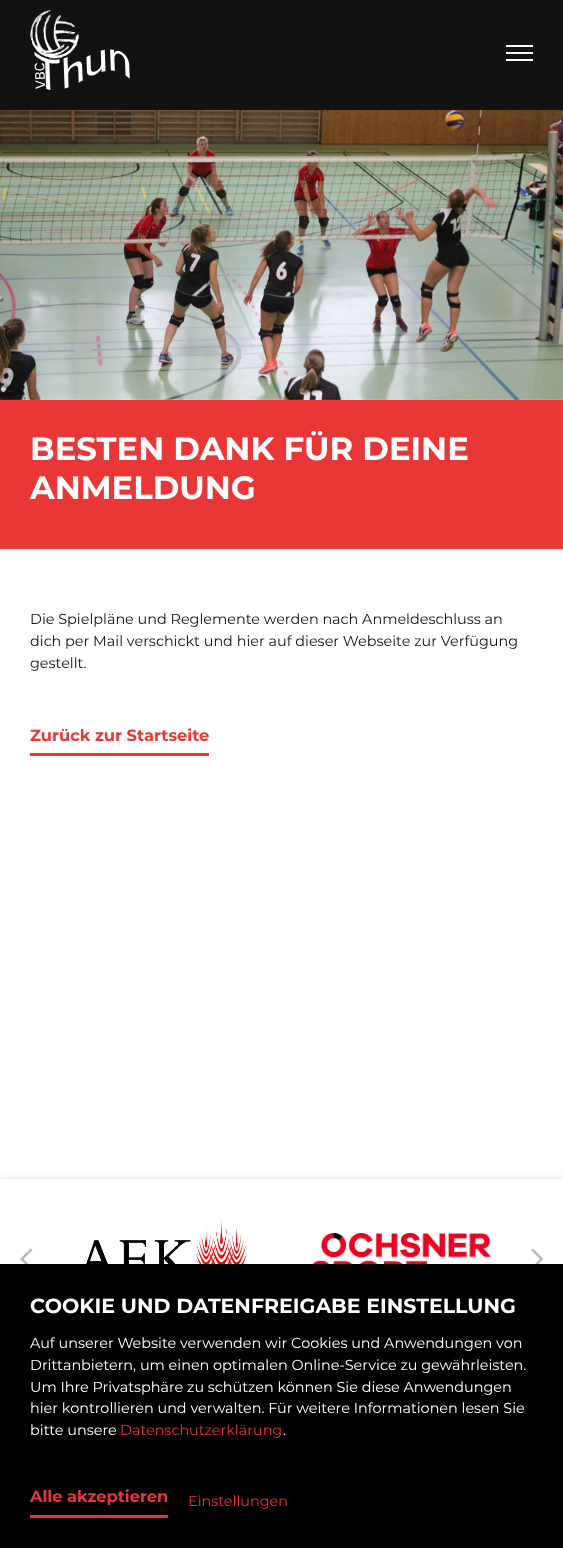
<!DOCTYPE html>
<meta charset="utf-8">
<style>body { margin: 0 } canvas { display: block }</style>
<canvas id="canvas" width="563" height="1548"></canvas>
<script type="module">
  const canvas = document.getElementById("canvas");
  const g = canvas.getContext("2d");
  g.miterLimit = 4;
  g.fontKerning = "normal";
  function drawText(s, x, y, [font, color]) {
    g.font = font;
    g.fillStyle = color;
    g.fillText(s, x, y);
  }
  function fillBox(x, y, w, h, color) {
    g.fillStyle = color;
    g.fillRect(x, y, w, h);
  }
  async function drawPicture(src, x, y, w, h) {
    const img = new Image();
    img.src = src;
    await img.decode();
    g.drawImage(img, x, y, w, h);
  }

  const s1 = ["bold 32.25px Montserrat", "#FFFFFF"];
  const s2 = ["14.4px Montserrat", "#121212"];
  const s3 = ["bold 16.25px Montserrat", "#E93636"];
  const s4 = ["bold 20.5px Montserrat", "#FFFFFF"];
  const s5 = ["14.4px Montserrat", "#FFFFFF"];
  const s6 = ["14.4px Montserrat", "#E93636"];

  fillBox(0, 0, 563, 1548, "#FFFFFF");
  fillBox(0, 0, 563, 110, "#121212");
  await drawPicture("pic1.png", 30, 10, 100, 80);
  fillBox(506, 45, 27, 2, "#FFFFFF");
  fillBox(506, 52, 27, 2, "#FFFFFF");
  fillBox(506, 59, 27, 2, "#FFFFFF");
  await drawPicture("pic2.png", 0, 110, 563, 290);
  fillBox(0, 400, 563, 149, "#E93636");
  drawText("BESTEN DANK FÜR DEINE", 30, 460, s1);
  drawText("ANMELDUNG", 30, 499, s1);
  drawText("Die Spielpläne und Reglemente werden nach Anmeldeschluss an", 30, 624, s2);
  drawText("dich per Mail verschickt und hier auf dieser Webseite zur Verfügung", 30, 646, s2);
  drawText("gestellt.", 30, 668, s2);
  drawText("Zurück zur Startseite", 30, 741, s3);
  fillBox(30, 753, 179, 3, "#E93636");
  g.fillStyle = "rgba(18, 18, 18, 0.2)";
  g.filter = "blur(2.5px)";
  g.beginPath();
  g.rect(0, 1179, 563, 160);
  g.fill();
  g.filter = "none";
  fillBox(0, 1179, 563, 85, "#FFFFFF");
  await drawPicture("pic3.png", 76, 1220, 171, 44);
  await drawPicture("pic4.png", 312, 1233, 179, 31);
  g.fillStyle = "#B8B8B8";
  g.beginPath();
  g.moveTo(32.5, 1250);
  g.lineTo(23.5, 1259);
  g.lineTo(32.5, 1268);
  g.lineTo(30.5, 1269.5);
  g.lineTo(20, 1259);
  g.lineTo(30.5, 1248.5);
  g.closePath();
  g.fill();
  g.beginPath();
  g.moveTo(531, 1250);
  g.lineTo(540, 1259);
  g.lineTo(531, 1268);
  g.lineTo(533, 1269.5);
  g.lineTo(543.5, 1259);
  g.lineTo(533, 1248.5);
  g.closePath();
  g.fill();
  fillBox(0, 1264, 563, 284, "#000000");
  drawText("COOKIE UND DATENFREIGABE EINSTELLUNG", 30, 1313, s4);
  drawText("Auf unserer Website verwenden wir Cookies und Anwendungen von", 30, 1348, s5);
  drawText("Drittanbietern, um einen optimalen Online-Service zu gewährleisten.", 30, 1370, s5);
  drawText("Um Ihre Privatsphäre zu schützen können Sie diese Anwendungen", 30, 1392, s5);
  drawText("hier kontrollieren und verwalten. Für weitere Informationen lesen Sie", 30, 1413, s5);
  drawText("bitte unsere", 30, 1435, s5);
  drawText("Datenschutzerklärung", 120, 1435, s6);
  drawText(".", 283, 1435, s5);
  drawText("Alle akzeptieren", 30, 1502, s3);
  fillBox(30, 1515, 138, 3, "#E93636");
  drawText("Einstellungen", 188, 1506, s6);
</script>
